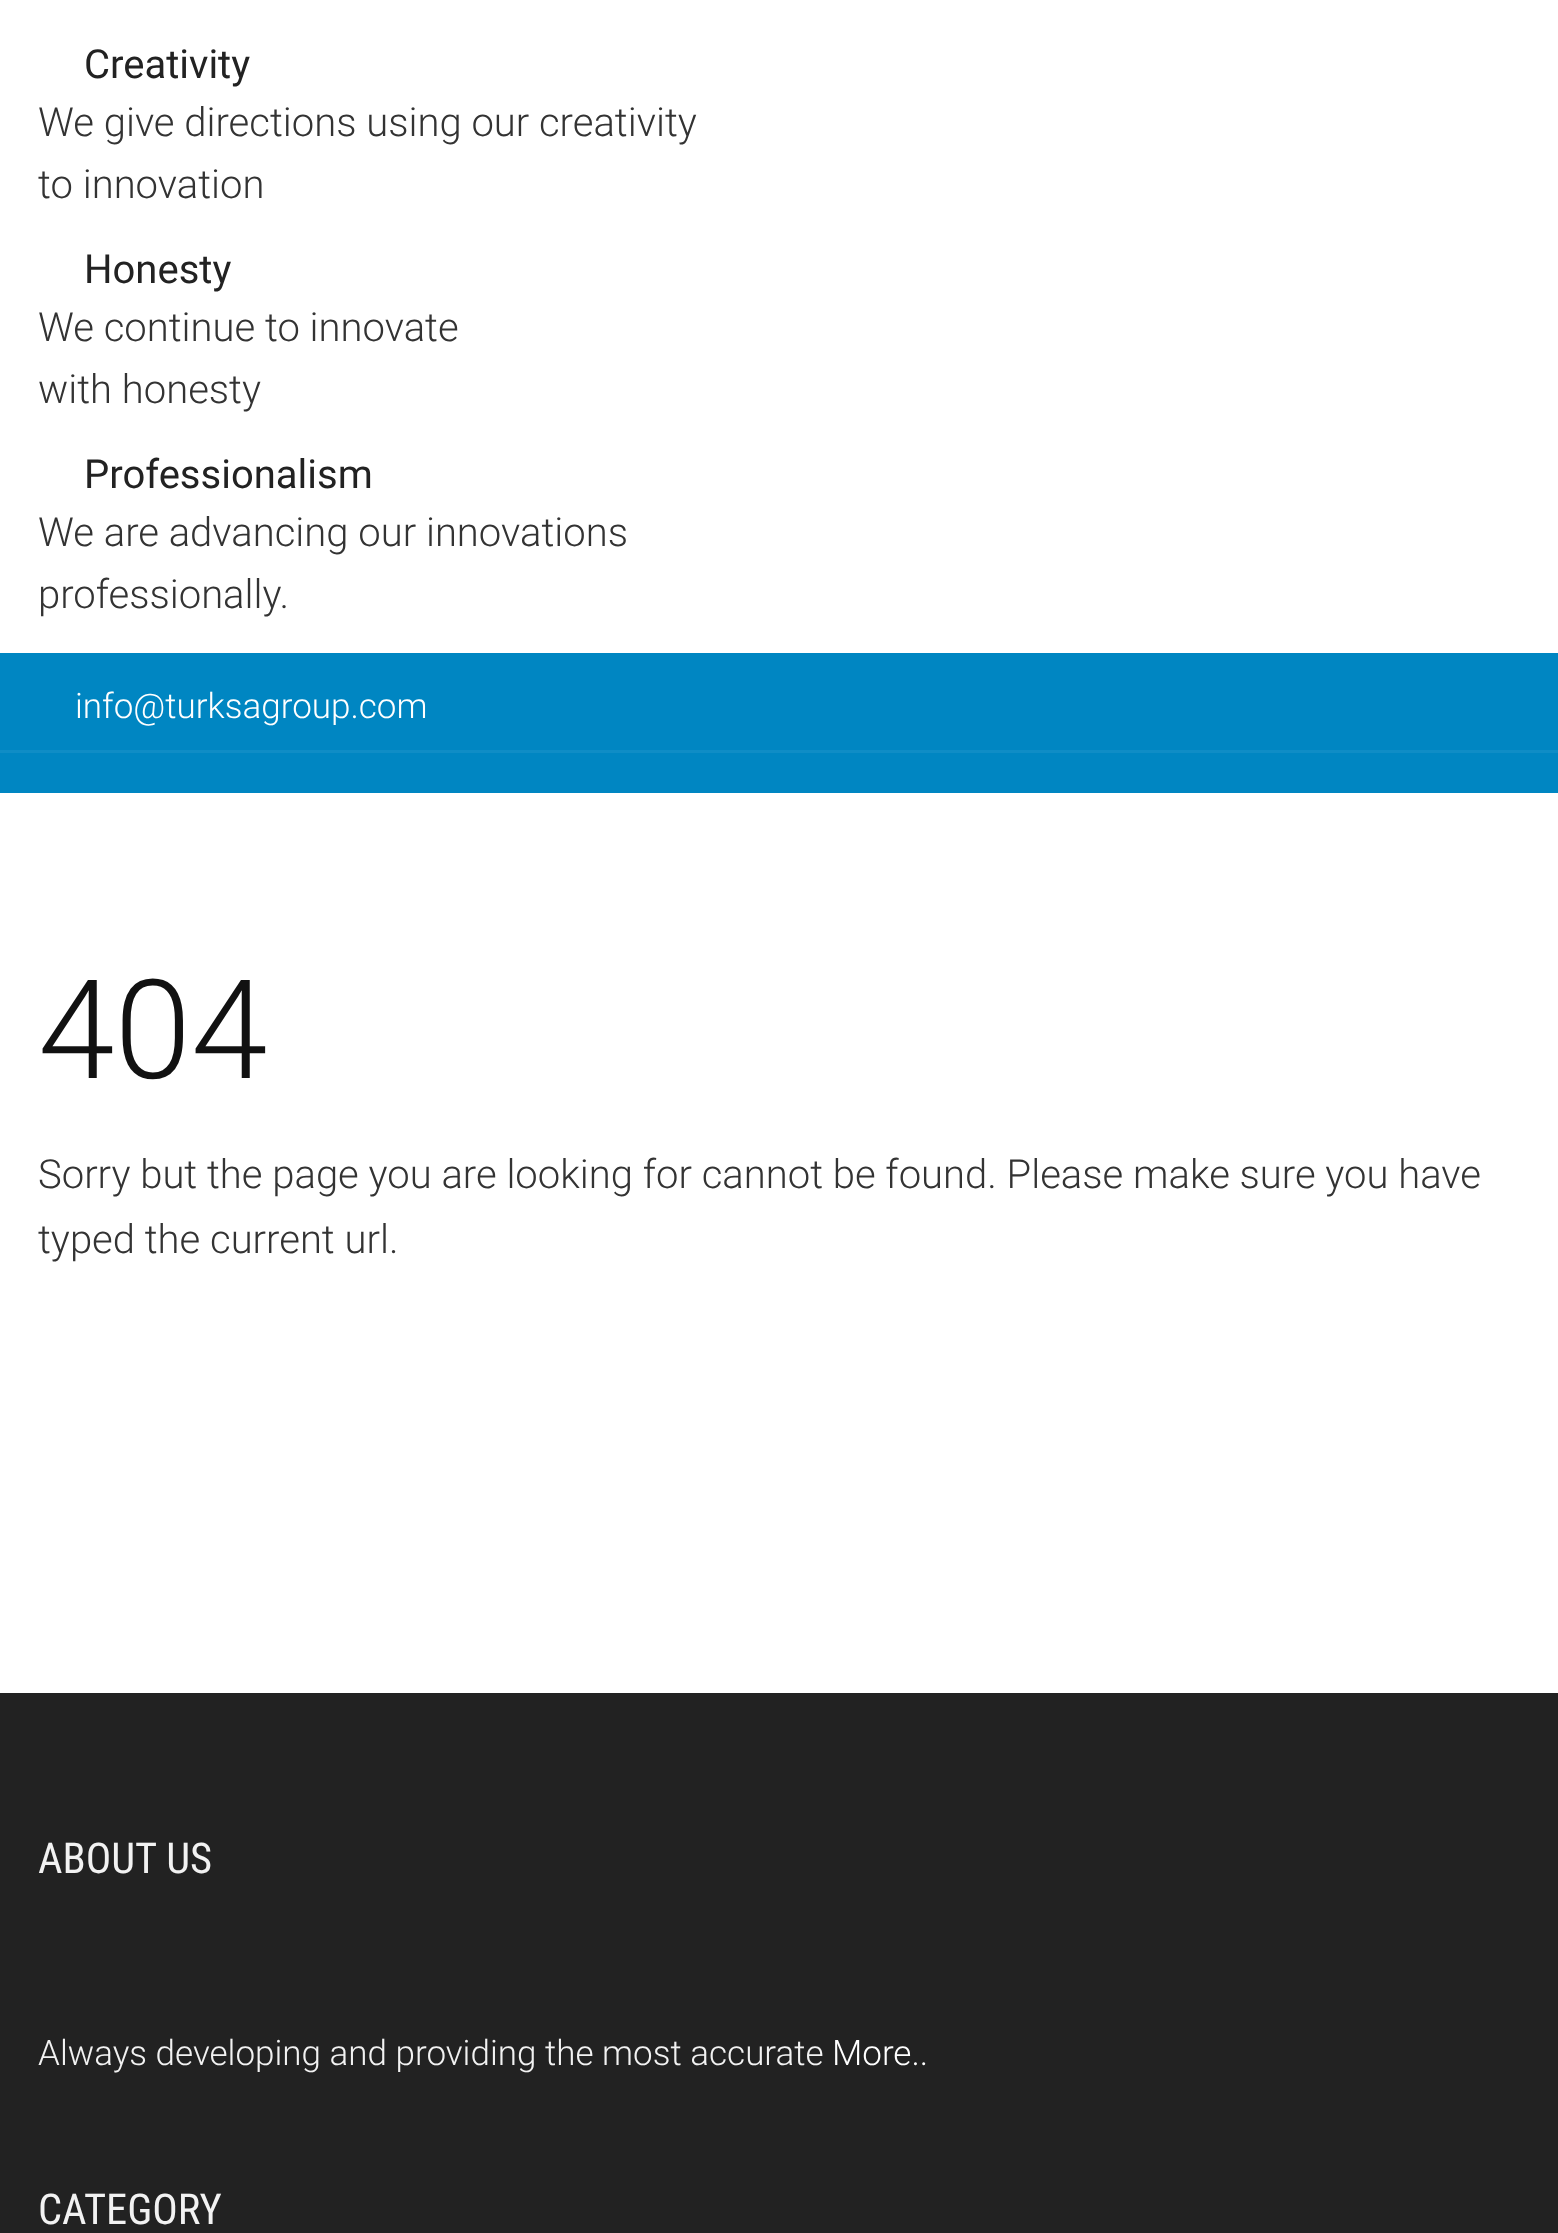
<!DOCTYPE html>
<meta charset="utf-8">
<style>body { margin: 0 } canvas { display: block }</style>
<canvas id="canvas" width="1558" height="2233"></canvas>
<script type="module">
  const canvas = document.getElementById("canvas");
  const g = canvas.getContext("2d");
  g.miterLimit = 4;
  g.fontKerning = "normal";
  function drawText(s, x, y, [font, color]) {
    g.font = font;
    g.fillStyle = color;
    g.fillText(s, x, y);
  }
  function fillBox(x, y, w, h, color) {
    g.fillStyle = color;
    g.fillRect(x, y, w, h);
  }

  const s1 = ["40px Roboto", "#222222"];
  const s2 = ["300 40px Roboto", "#333333"];
  const s3 = ["300 35px Roboto", "#FFFFFF"];
  const s4 = ["300 138px Roboto", "#111111"];
  const s5 = ["42.5px Roboto Condensed", "#F2F2F2"];
  const s6 = ["300 35px Roboto", "#F2F2F2"];

  fillBox(0, 0, 1558, 2233, "#FFFFFF");
  drawText("Creativity", 84, 78, s1);
  drawText("We give directions using our creativity", 38, 136, s2);
  drawText("to innovation", 38, 198, s2);
  drawText("Honesty", 84, 283, s1);
  drawText("We continue to innovate", 38, 341, s2);
  drawText("with honesty", 38, 403, s2);
  drawText("Professionalism", 84, 488, s1);
  drawText("We are advancing our innovations", 38, 546, s2);
  drawText("professionally.", 38, 608, s2);
  fillBox(0, 653, 1558, 140, "#0086C2");
  drawText("info@turksagroup.com", 75, 718, s3);
  fillBox(0, 750, 1558, 3, "#0F8DC6");
  drawText("404", 38, 1078, s4);
  drawText("Sorry but the page you are looking for cannot be found. Please make sure you have", 38, 1188, s2);
  drawText("typed the current url.", 38, 1253, s2);
  fillBox(0, 1693, 1558, 540, "#222222");
  drawText("ABOUT US", 38, 1873, s5);
  drawText("Always developing and providing the most accurate", 38, 2065, s6);
  drawText("More..", 832, 2065, s3);
  drawText("CATEGORY", 38, 2224, s5);
</script>
